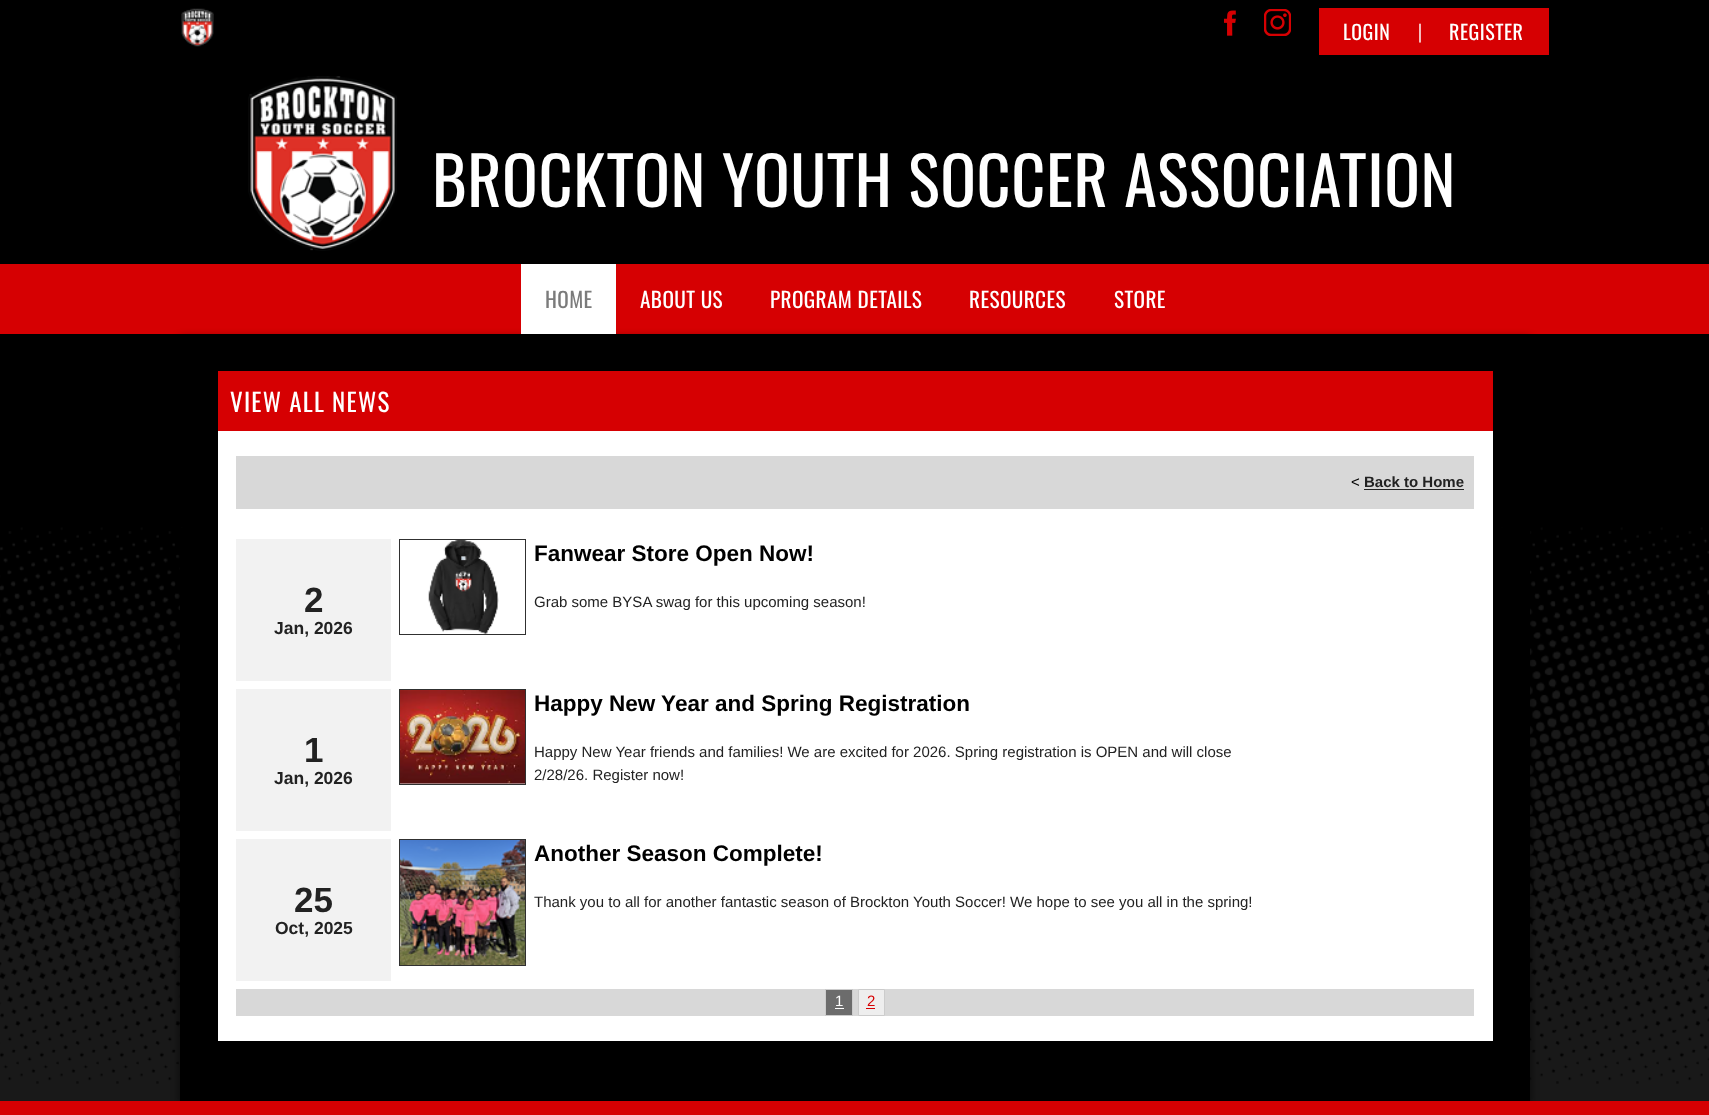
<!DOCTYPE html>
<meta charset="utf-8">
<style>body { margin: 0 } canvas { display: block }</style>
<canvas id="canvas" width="1709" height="1115"></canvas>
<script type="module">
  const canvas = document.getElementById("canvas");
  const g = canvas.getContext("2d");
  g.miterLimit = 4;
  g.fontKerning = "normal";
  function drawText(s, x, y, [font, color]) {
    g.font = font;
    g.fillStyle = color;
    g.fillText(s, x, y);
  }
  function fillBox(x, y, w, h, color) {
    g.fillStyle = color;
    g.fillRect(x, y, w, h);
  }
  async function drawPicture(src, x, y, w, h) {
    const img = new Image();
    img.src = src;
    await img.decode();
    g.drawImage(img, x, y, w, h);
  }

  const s1 = ["20px Oswald", "#FFFFFF"];
  const s2 = ["20px Lato", "#FFFFFF"];
  const s3 = ["66.25px Oswald", "#FFFFFF"];
  const s4 = ["21.25px Oswald", "#7B7B7B"];
  const s5 = ["21.25px Oswald", "#FFFFFF"];
  const s6 = ["25px Oswald", "#FFFFFF"];
  const s7 = ["15px Liberation Sans", "#000000"];
  const s8 = ["bold 15px Liberation Sans", "#222222"];
  const s9 = ["bold 35px Liberation Sans", "#222222"];
  const s10 = ["bold 17.5px Liberation Sans", "#222222"];
  const s11 = ["bold 22.5px Liberation Sans", "#000000"];
  const s12 = ["15px Liberation Sans", "#222222"];
  const s13 = ["15px Liberation Sans", "#FFFFFF"];
  const s14 = ["15px Liberation Sans", "#D60002"];

  fillBox(0, 0, 1709, 1115, "#000000");
  await drawPicture("pic1.png", 181, 8, 33, 39);
  await drawPicture("pic2.png", 1224, 10, 12, 26);
  await drawPicture("pic3.png", 1264, 9, 27, 27);
  fillBox(1319, 8, 230, 47, "#D60002");
  g.letterSpacing = "0.5px";
  drawText("LOGIN", 1343, 40, s1);
  g.letterSpacing = "0px";
  drawText("|", 1417, 39, s2);
  g.letterSpacing = "0.5px";
  drawText("REGISTER", 1449, 40, s1);
  await drawPicture("pic4.png", 248, 76, 149, 175);
  g.letterSpacing = "0.6px";
  drawText("BROCKTON YOUTH SOCCER ASSOCIATION", 432, 207, s3);
  fillBox(0, 264, 1709, 70, "#D60002");
  await drawPicture("pic5.png", 0, 527, 1709, 574);
  g.fillStyle = "rgba(0, 0, 0, 0.61)";
  g.filter = "blur(4.5px)";
  g.beginPath();
  g.rect(180, 338, 1350, 767);
  g.fill();
  g.filter = "none";
  fillBox(521, 264, 95, 70, "#FFFFFF");
  g.letterSpacing = "0.4px";
  drawText("HOME", 545, 308, s4);
  drawText("ABOUT US", 640, 308, s5);
  drawText("PROGRAM DETAILS", 770, 308, s5);
  drawText("RESOURCES", 969, 308, s5);
  drawText("STORE", 1114, 308, s5);
  fillBox(180, 528, 1350, 573, "#000000");
  fillBox(218, 371, 1275, 60, "#D60002");
  g.letterSpacing = "1.25px";
  drawText("VIEW ALL NEWS", 230, 412, s6);
  fillBox(218, 431, 1275, 610, "#FFFFFF");
  fillBox(236, 456, 1238, 53, "#D8D8D8");
  g.letterSpacing = "0px";
  drawText("<", 1351, 487, s7);
  drawText("Back to Home", 1364, 487, s8);
  fillBox(1364, 489, 100, 1, "#222222");
  fillBox(236, 539, 155, 142, "#F2F2F2");
  drawText("2", 304, 612, s9);
  drawText("Jan, 2026", 274, 634, s10);
  g.strokeStyle = "#303030";
  g.strokeRect(399.5, 539.5, 126, 95);
  await drawPicture("pic6.png", 428, 540, 71, 94);
  drawText("Fanwear Store Open Now!", 534, 561, s11);
  drawText("Grab some BYSA swag for this upcoming season!", 534, 607, s12);
  fillBox(236, 689, 155, 142, "#F2F2F2");
  drawText("1", 304, 762, s9);
  drawText("Jan, 2026", 274, 784, s10);
  g.strokeRect(399.5, 689.5, 126, 95);
  await drawPicture("pic7.png", 400, 690, 125, 94);
  drawText("Happy New Year and Spring Registration", 534, 711, s11);
  drawText("Happy New Year friends and families! We are excited for 2026. Spring registration is OPEN and will close", 534, 757, s12);
  drawText("2/28/26. Register now!", 534, 780, s12);
  fillBox(236, 839, 155, 142, "#F2F2F2");
  drawText("25", 294, 912, s9);
  drawText("Oct, 2025", 275, 934, s10);
  g.strokeRect(399.5, 839.5, 126, 126);
  await drawPicture("pic8.png", 400, 840, 125, 125);
  drawText("Another Season Complete!", 534, 861, s11);
  drawText("Thank you to all for another fantastic season of Brockton Youth Soccer! We hope to see you all in the spring!", 534, 907, s12);
  fillBox(236, 989, 1238, 27, "#D8D8D8");
  g.fillStyle = "#6C6C6C";
  g.beginPath();
  g.rect(825.5, 989.5, 27, 26);
  g.fill();
  g.strokeStyle = "#CCCCCC";
  g.stroke();
  drawText("1", 835, 1006, s13);
  fillBox(835, 1008, 9, 1, "#FFFFFF");
  g.fillStyle = "#EEEEEE";
  g.beginPath();
  g.rect(858.5, 989.5, 26, 26);
  g.fill();
  g.stroke();
  drawText("2", 867, 1006, s14);
  fillBox(866, 1008, 9, 1, "#D60002");
  fillBox(0, 1101, 1709, 14, "#D60002");
</script>
